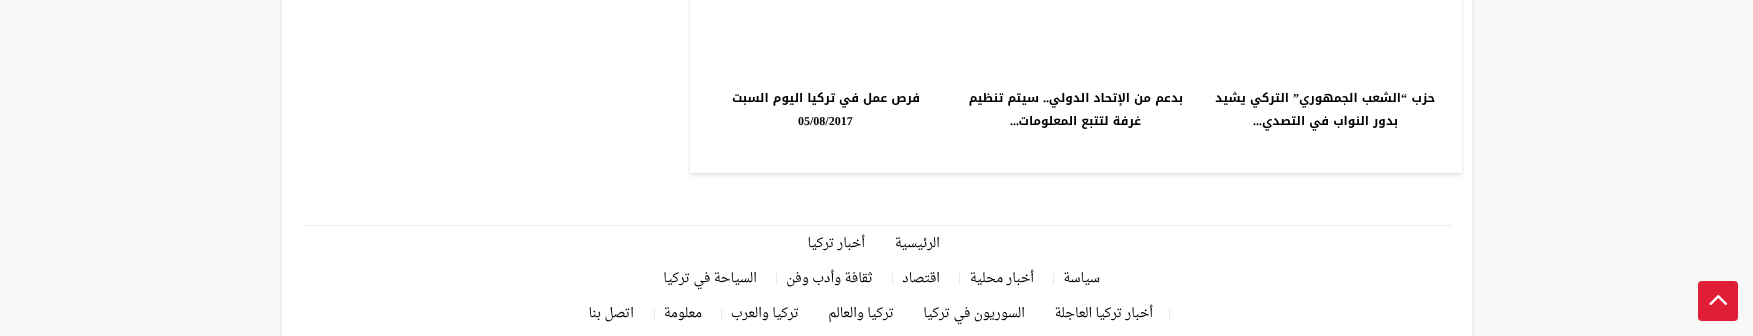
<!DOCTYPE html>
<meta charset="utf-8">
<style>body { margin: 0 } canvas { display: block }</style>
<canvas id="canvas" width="1753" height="336"></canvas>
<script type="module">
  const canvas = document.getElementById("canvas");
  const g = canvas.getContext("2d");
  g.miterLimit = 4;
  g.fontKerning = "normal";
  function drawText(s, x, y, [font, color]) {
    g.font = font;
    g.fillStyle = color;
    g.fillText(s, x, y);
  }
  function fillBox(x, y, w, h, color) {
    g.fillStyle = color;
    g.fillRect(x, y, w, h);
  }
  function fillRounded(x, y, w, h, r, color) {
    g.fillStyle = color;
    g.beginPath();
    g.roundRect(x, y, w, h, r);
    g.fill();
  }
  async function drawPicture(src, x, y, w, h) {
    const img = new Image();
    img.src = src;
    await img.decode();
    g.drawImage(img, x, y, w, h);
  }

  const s1 = ["bold 12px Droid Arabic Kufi", "#000000"];
  const s2 = ["bold 12px Liberation Serif", "#000000"];
  const s3 = ["13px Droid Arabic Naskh", "#000000"];
  const s4 = ["13px Liberation Serif", "#DDDDDD"];

  fillBox(0, 0, 1753, 336, "#F8F8F8");
  fillRounded(1698, 281, 40, 40, 4, "#E01F37");
  await drawPicture("pic1.png", 1709, 294, 19, 12);
  g.fillStyle = "#CCCCCC";
  g.filter = "blur(2.5px)";
  g.beginPath();
  g.rect(283, -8, 1188, 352);
  g.fill();
  g.filter = "none";
  fillBox(282, 0, 1190, 336, "#FFFFFF");
  g.save();
  g.beginPath();
  g.moveTo(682, 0);
  g.lineTo(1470, 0);
  g.lineTo(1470, 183);
  g.lineTo(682, 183);
  g.closePath();
  g.moveTo(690, -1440);
  g.lineTo(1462, -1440);
  g.lineTo(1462, 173);
  g.lineTo(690, 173);
  g.closePath();
  g.clip("evenodd");
  g.fillStyle = "#D1D1D1";
  g.filter = "blur(2.5px)";
  g.beginPath();
  g.rect(691, -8, 770, 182);
  g.fill();
  g.filter = "none";
  g.restore();
  g.direction = "rtl";
  drawText("حزب", 1435, 102, s1);
  drawText("“", 1407, 102, s2);
  drawText("الشعب الجمهوري", 1401, 102, s1);
  drawText("”", 1299, 102, s2);
  drawText("التركي يشيد", 1289, 102, s1);
  drawText("بدور النواب في التصدي", 1398, 125, s1);
  drawText("...", 1262, 125, s2);
  drawText("بدعم من الإتحاد الدولي", 1183, 102, s1);
  drawText("..", 1049, 102, s2);
  drawText("سيتم تنظيم", 1039, 102, s1);
  drawText("غرفة لتتبع المعلومات", 1141, 125, s1);
  drawText("...", 1019, 125, s2);
  drawText("فرص عمل في تركيا اليوم السبت", 920, 102, s1);
  g.direction = "ltr";
  drawText("05/08/2017", 798, 125, s2);
  fillBox(302, 225, 1150, 1, "#E9EDF0");
  g.direction = "rtl";
  drawText("أخبار تركيا", 865, 247, s3);
  drawText("سياسة", 1100, 282, s3);
  g.direction = "ltr";
  drawText("|", 1052, 282, s4);
  g.direction = "rtl";
  drawText("أخبار محلية", 1034, 282, s3);
  g.direction = "ltr";
  drawText("|", 958, 282, s4);
  g.direction = "rtl";
  drawText("اقتصاد", 940, 282, s3);
  g.direction = "ltr";
  drawText("|", 891, 282, s4);
  g.direction = "rtl";
  drawText("ثقافة وأدب وفن", 873, 282, s3);
  g.direction = "ltr";
  drawText("|", 775, 282, s4);
  g.direction = "rtl";
  drawText("السياحة في تركيا", 757, 282, s3);
  g.direction = "ltr";
  drawText("|", 1168, 317, s4);
  g.direction = "rtl";
  drawText("الرئيسية", 940, 247, s3);
  drawText("أخبار تركيا العاجلة", 1153, 317, s3);
  drawText("السوريون في تركيا", 1025, 317, s3);
  drawText("تركيا والعالم", 894, 317, s3);
  drawText("تركيا والعرب", 799, 317, s3);
  g.direction = "ltr";
  drawText("|", 720, 317, s4);
  g.direction = "rtl";
  drawText("معلومة", 702, 317, s3);
  g.direction = "ltr";
  drawText("|", 653, 317, s4);
  g.direction = "rtl";
  drawText("اتصل بنا", 634, 317, s3);
</script>
